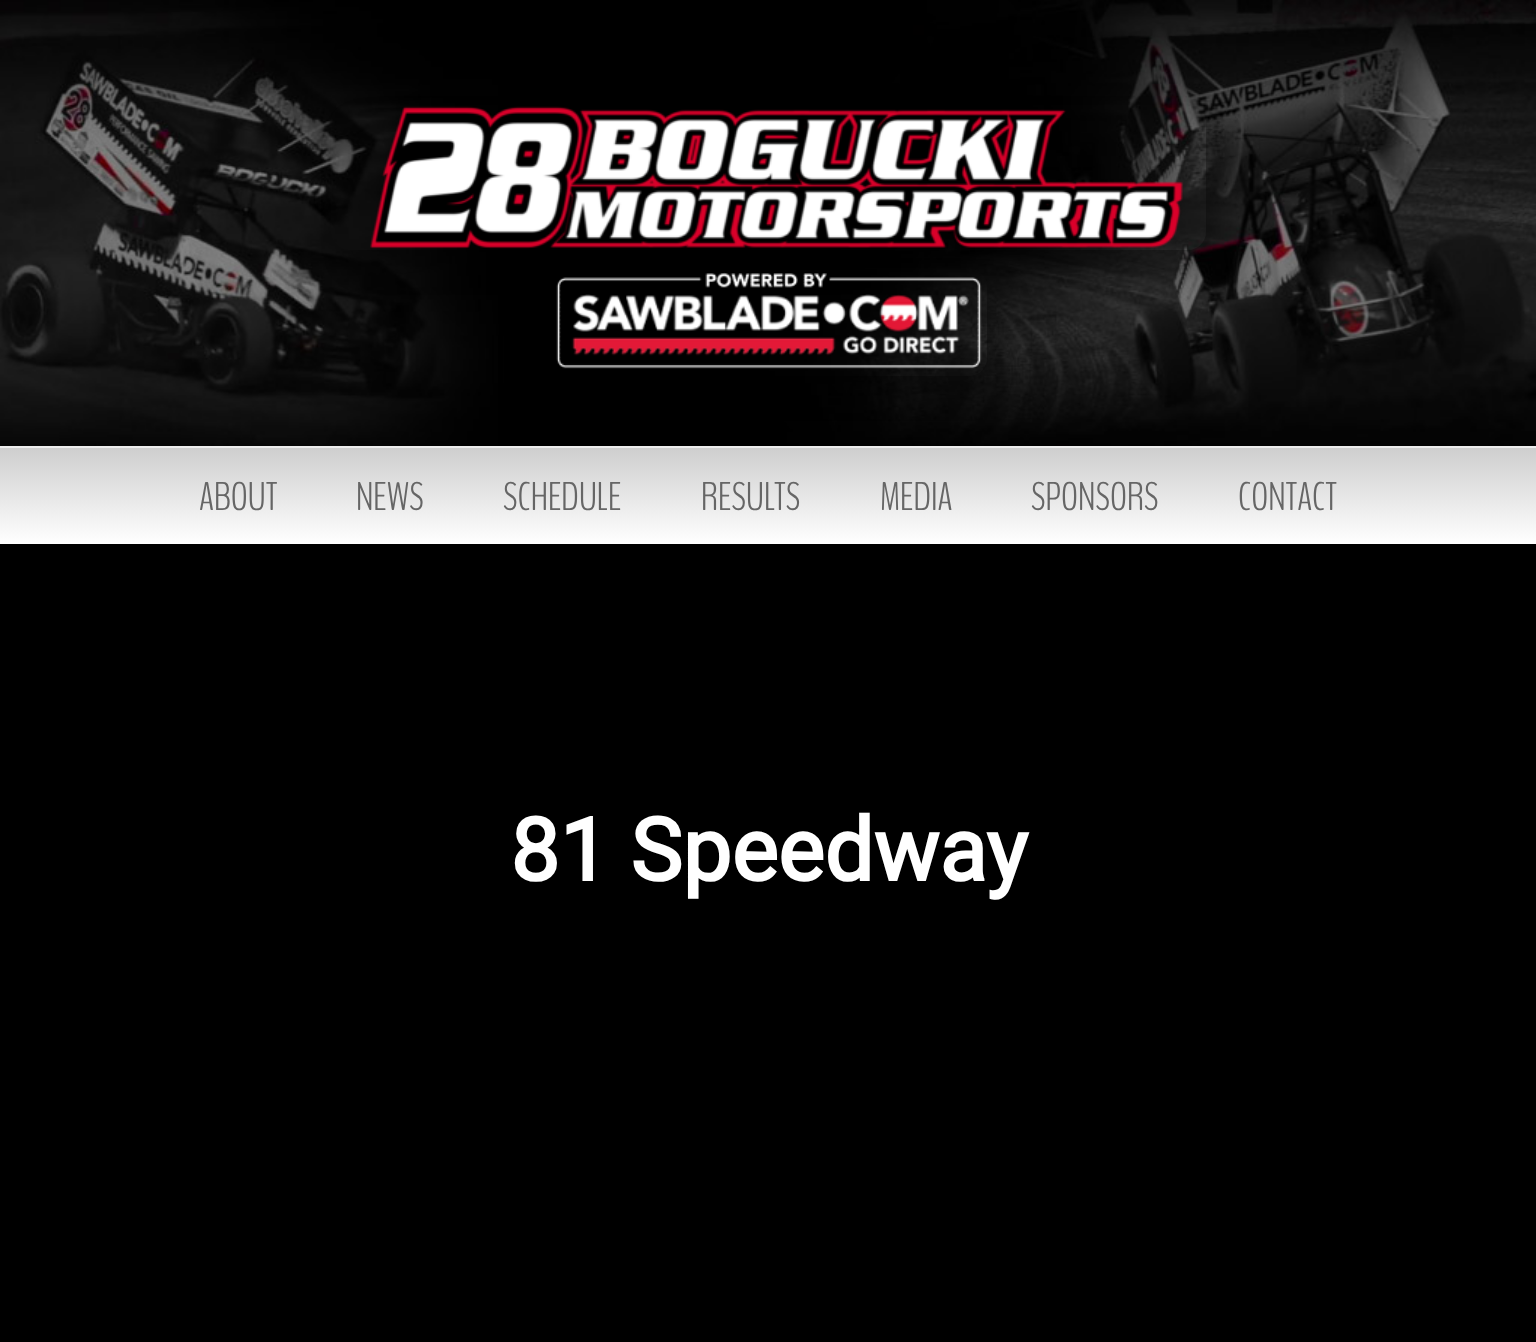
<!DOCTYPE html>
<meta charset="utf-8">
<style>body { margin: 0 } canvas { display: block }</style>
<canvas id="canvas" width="1536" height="1342"></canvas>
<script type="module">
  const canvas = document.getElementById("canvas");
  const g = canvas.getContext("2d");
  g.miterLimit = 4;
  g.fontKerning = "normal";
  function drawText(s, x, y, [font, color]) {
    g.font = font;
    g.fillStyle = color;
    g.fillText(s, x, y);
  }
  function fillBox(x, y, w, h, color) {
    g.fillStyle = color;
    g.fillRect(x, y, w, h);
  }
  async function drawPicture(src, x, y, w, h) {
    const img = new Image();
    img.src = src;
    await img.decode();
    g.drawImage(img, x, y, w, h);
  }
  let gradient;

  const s1 = ["300 40px BenchNine", "#666666"];
  const s2 = ["bold 87.5px Roboto", "#FFFFFF"];

  fillBox(0, 0, 1536, 1342, "#000000");
  await drawPicture("pic1.png", 0, 0, 1536, 446);
  fillBox(0, 446, 1536, 2, "#EDEDED");
  g.save();
  g.beginPath();
  g.moveTo(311, 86);
  g.lineTo(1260, 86);
  g.lineTo(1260, 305);
  g.lineTo(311, 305);
  g.closePath();
  g.moveTo(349, 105);
  g.lineTo(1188, 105);
  g.bezierCurveTo(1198, 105, 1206, 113, 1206, 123);
  g.lineTo(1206, 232);
  g.bezierCurveTo(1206, 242, 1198, 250, 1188, 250);
  g.lineTo(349, 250);
  g.bezierCurveTo(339, 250, 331, 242, 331, 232);
  g.lineTo(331, 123);
  g.bezierCurveTo(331, 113, 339, 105, 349, 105);
  g.closePath();
  g.clip("evenodd");
  g.fillStyle = "rgba(0, 0, 0, 0.3)";
  g.filter = "blur(12px)";
  g.beginPath();
  g.roundRect(348, 123, 875, 145, 18);
  g.fill();
  g.filter = "none";
  g.restore();
  await drawPicture("pic2.png", 370, 106, 814, 143);
  g.save();
  g.beginPath();
  g.moveTo(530, 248);
  g.lineTo(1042, 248);
  g.lineTo(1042, 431);
  g.lineTo(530, 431);
  g.closePath();
  g.moveTo(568, 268);
  g.lineTo(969, 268);
  g.bezierCurveTo(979, 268, 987, 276, 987, 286);
  g.lineTo(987, 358);
  g.bezierCurveTo(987, 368, 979, 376, 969, 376);
  g.lineTo(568, 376);
  g.bezierCurveTo(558, 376, 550, 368, 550, 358);
  g.lineTo(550, 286);
  g.bezierCurveTo(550, 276, 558, 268, 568, 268);
  g.closePath();
  g.clip("evenodd");
  g.fillStyle = "rgba(0, 0, 0, 0.3)";
  g.filter = "blur(12px)";
  g.beginPath();
  g.roundRect(567, 285, 438, 109, 18);
  g.fill();
  g.filter = "none";
  g.restore();
  await drawPicture("pic3.png", 556, 272, 426, 97);
  gradient = g.createLinearGradient(768, 448, 768, 544);
  gradient.addColorStop(0, "#CECECE");
  gradient.addColorStop(1, "#FFFFFF");
  g.fillStyle = gradient;
  g.fillRect(0, 448, 1536, 96);
  drawText("ABOUT", 199, 510, s1);
  drawText("NEWS", 356, 510, s1);
  drawText("SCHEDULE", 503, 510, s1);
  drawText("RESULTS", 701, 510, s1);
  drawText("MEDIA", 880, 510, s1);
  drawText("SPONSORS", 1031, 510, s1);
  drawText("CONTACT", 1238, 510, s1);
  drawText("81 Speedway", 510, 881, s2);
</script>
